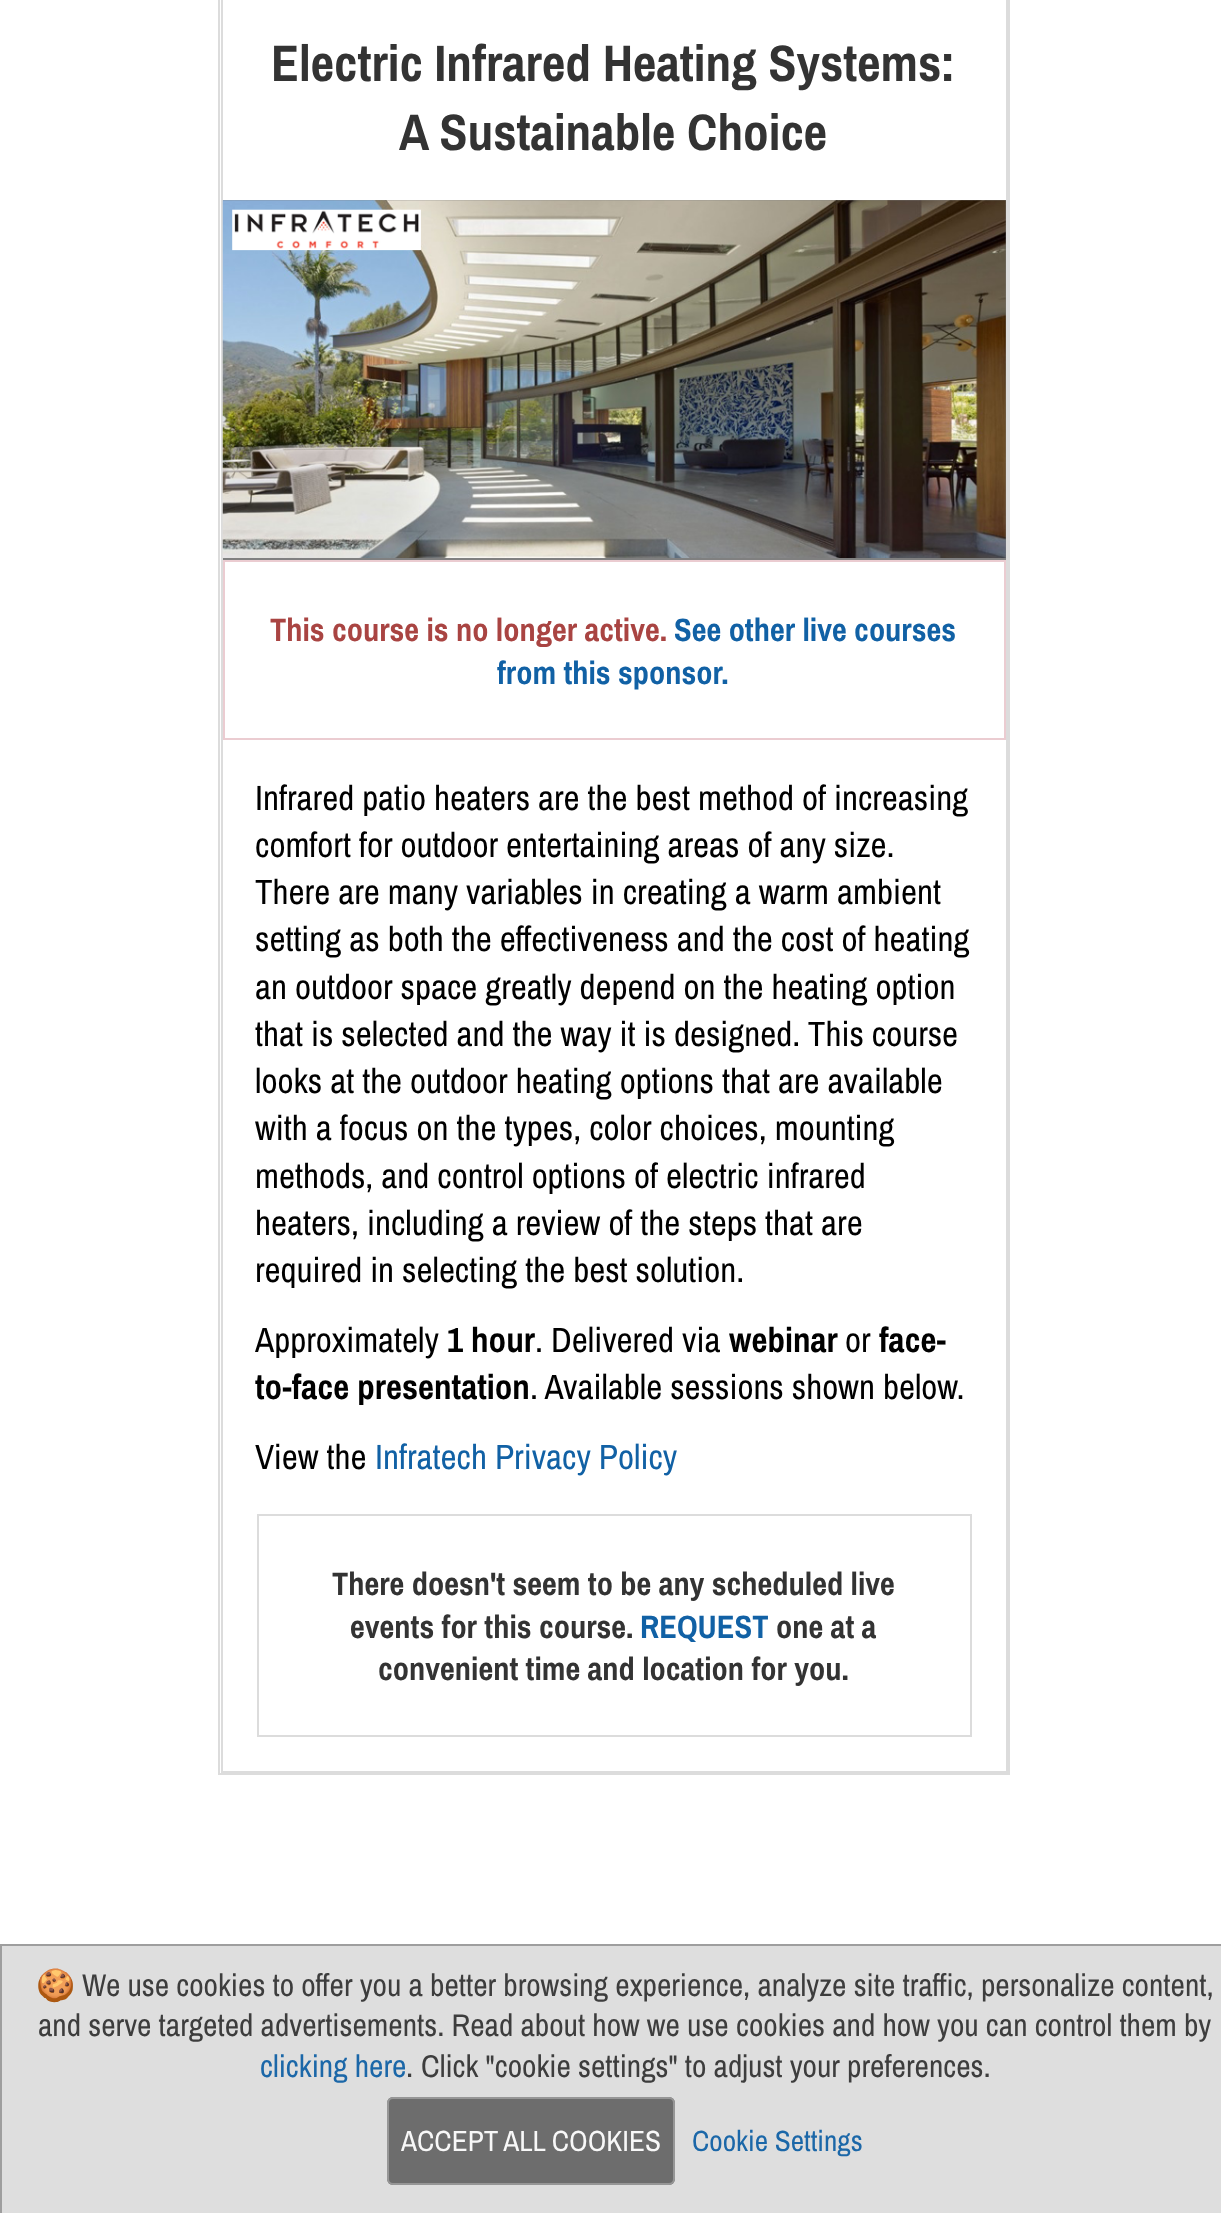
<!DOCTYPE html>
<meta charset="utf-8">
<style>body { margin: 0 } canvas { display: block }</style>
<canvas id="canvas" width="1221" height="2213"></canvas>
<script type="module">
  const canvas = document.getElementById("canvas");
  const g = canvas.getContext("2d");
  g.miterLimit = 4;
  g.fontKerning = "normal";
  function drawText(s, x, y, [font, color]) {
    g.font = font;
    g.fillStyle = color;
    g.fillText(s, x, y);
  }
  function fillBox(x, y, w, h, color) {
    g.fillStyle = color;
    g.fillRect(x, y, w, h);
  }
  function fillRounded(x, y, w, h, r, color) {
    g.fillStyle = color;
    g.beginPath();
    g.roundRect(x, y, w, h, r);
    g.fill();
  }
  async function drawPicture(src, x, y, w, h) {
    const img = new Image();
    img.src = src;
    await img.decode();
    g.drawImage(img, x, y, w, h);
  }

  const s1 = ["bold 51.25px Archivo Narrow", "#333333"];
  const s2 = ["bold 32.4px Archivo Narrow", "#A94442"];
  const s3 = ["bold 32.4px Archivo Narrow", "#1161A5"];
  const s4 = ["35.1px Archivo Narrow", "#000000"];
  const s5 = ["bold 35.1px Archivo Narrow", "#000000"];
  const s6 = ["35.1px Archivo Narrow", "#1161A5"];
  const s7 = ["bold 32.4px Archivo Narrow", "#333333"];
  const s8 = ["31.5px Noto Color Emoji", "#3D3D3D"];
  const s9 = ["31.5px Archivo Narrow", "#3D3D3D"];
  const s10 = ["31.5px Archivo Narrow", "#1B67A8"];
  const s11 = ["29.25px Archivo Narrow", "#F8F8F8"];
  const s12 = ["29.25px Archivo Narrow", "#1B67A8"];

  fillBox(0, 0, 1221, 2213, "#FFFFFF");
  fillBox(2, 1946, 1219, 267, "#DEDEDE");
  g.strokeStyle = "#DCDCDC";
  g.lineWidth = 2;
  g.strokeRect(219, -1, 790, 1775);
  g.strokeRect(222, -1, 785, 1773);
  drawText("Electric Infrared Heating Systems:", 271, 81, s1);
  drawText("A Sustainable Choice", 399, 150, s1);
  fillBox(223, 200, 783, 360, "#808080");
  await drawPicture("pic1.png", 222, 200, 784, 358);
  g.strokeStyle = "#EBCCD1";
  g.strokeRect(224, 561, 781, 178);
  drawText("This course is no longer active.", 270, 641, s2);
  drawText("See other live courses", 674, 641, s3);
  drawText("from this sponsor.", 497, 684, s3);
  drawText("Infrared patio heaters are the best method of increasing", 255, 810, s4);
  drawText("comfort for outdoor entertaining areas of any size.", 255, 857, s4);
  drawText("There are many variables in creating a warm ambient", 255, 904, s4);
  drawText("setting as both the effectiveness and the cost of heating", 255, 951, s4);
  drawText("an outdoor space greatly depend on the heating option", 255, 999, s4);
  drawText("that is selected and the way it is designed. This course", 255, 1046, s4);
  drawText("looks at the outdoor heating options that are available", 255, 1093, s4);
  drawText("with a focus on the types, color choices, mounting", 255, 1140, s4);
  drawText("methods, and control options of electric infrared", 255, 1188, s4);
  drawText("heaters, including a review of the steps that are", 255, 1235, s4);
  drawText("required in selecting the best solution.", 255, 1282, s4);
  drawText("Approximately", 255, 1352, s4);
  drawText("1 hour", 447, 1352, s5);
  drawText(". Delivered via", 535, 1352, s4);
  drawText("webinar", 729, 1352, s5);
  drawText("or", 845, 1352, s4);
  drawText("face-", 879, 1352, s5);
  drawText("to-face presentation", 255, 1399, s5);
  drawText(". Available sessions shown below.", 530, 1399, s4);
  drawText("View the", 255, 1469, s4);
  drawText("Infratech Privacy Policy", 375, 1469, s6);
  g.strokeStyle = "#DCDCDC";
  g.strokeRect(258, 1515, 713, 221);
  drawText("There doesn't seem to be any scheduled live", 332, 1595, s7);
  drawText("events for this course.", 350, 1638, s7);
  drawText("REQUEST", 640, 1638, s3);
  drawText("one at a", 776, 1638, s7);
  drawText("convenient time and location for you.", 378, 1680, s7);
  fillBox(0, 1944, 1221, 2, "#9E9E9E");
  fillBox(0, 1944, 2, 269, "#9E9E9E");
  drawText("🍪", 36, 1996, s8);
  drawText("We use cookies to offer you a better browsing experience, analyze site traffic, personalize content,", 82, 1996, s9);
  drawText("and serve targeted advertisements. Read about how we use", 38, 2036, s9);
  drawText("cookies and how you can control them by", 736, 2036, s9);
  drawText("clicking here", 260, 2077, s10);
  drawText(".", 406, 2077, s9);
  drawText("Click \"cookie settings\" to adjust your preferences.", 421, 2077, s9);
  fillRounded(387, 2097, 288, 88, 6, "rgba(102, 102, 102, 0.95)");
  g.beginPath();
  g.roundRect(388, 2098, 286, 86, 5);
  g.strokeStyle = "rgba(153, 153, 153, 0.95)";
  g.stroke();
  drawText("ACCEPT ALL COOKIES", 401, 2151, s11);
  drawText("Cookie Settings", 692, 2151, s12);
</script>
